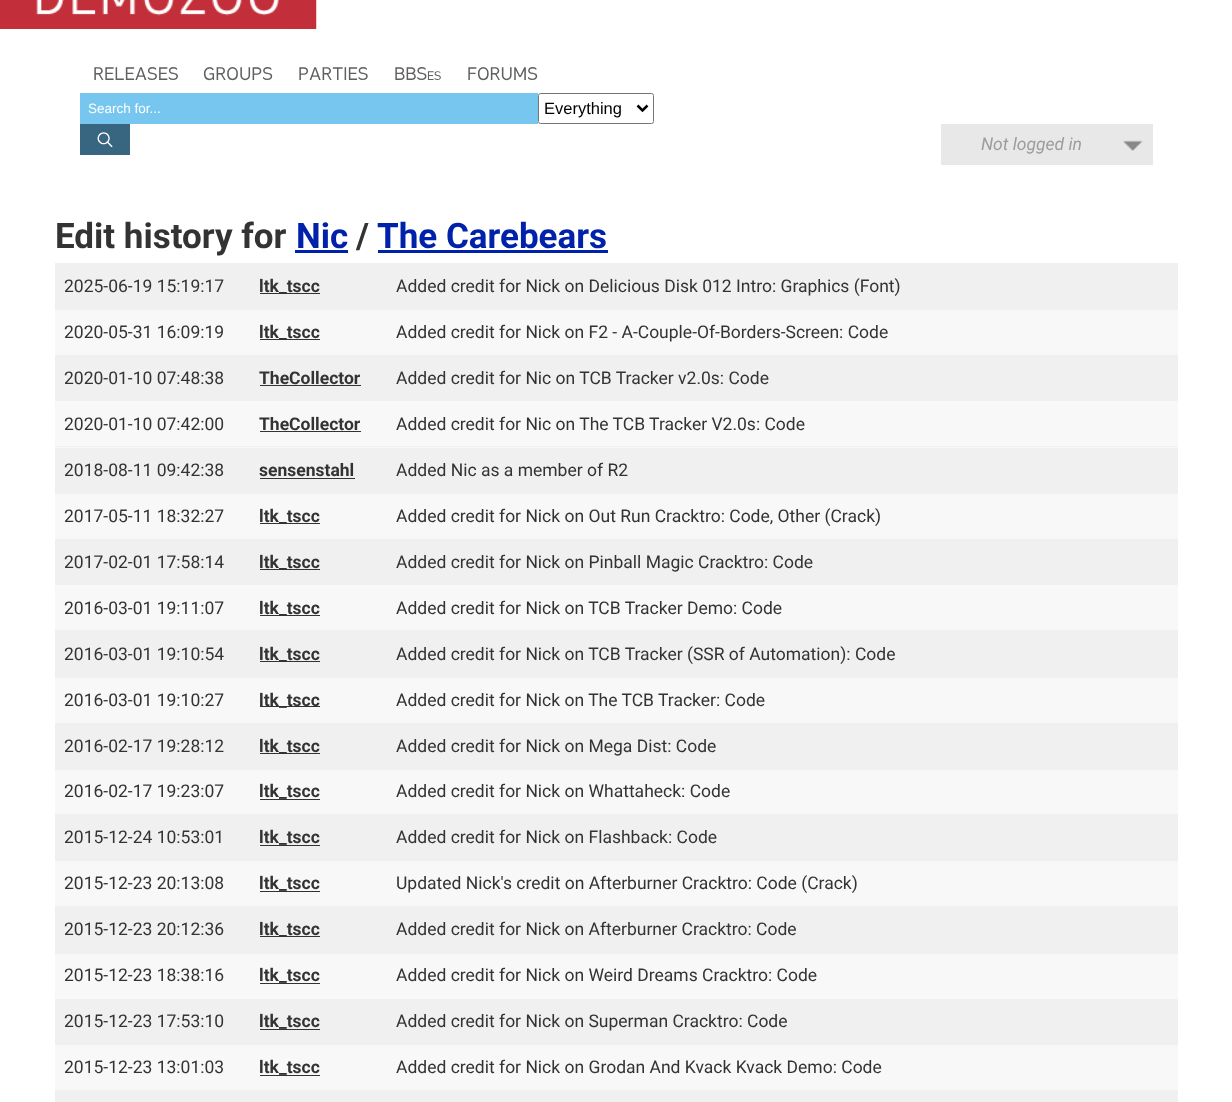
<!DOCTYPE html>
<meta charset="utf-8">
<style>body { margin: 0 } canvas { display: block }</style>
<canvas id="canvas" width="1232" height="1102"></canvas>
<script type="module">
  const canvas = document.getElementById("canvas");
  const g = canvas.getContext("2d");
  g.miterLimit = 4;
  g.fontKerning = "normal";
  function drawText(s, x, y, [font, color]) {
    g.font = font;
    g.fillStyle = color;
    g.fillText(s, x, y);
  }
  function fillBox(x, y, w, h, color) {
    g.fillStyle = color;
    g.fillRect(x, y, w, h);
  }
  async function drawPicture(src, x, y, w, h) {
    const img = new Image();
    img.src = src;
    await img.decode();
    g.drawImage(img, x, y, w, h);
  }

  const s1 = ["17.5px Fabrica", "#5E5F5F"];
  const s2 = ["12px Fabrica", "#5E5F5F"];
  const s3 = ["13.5px Liberation Sans", "#FFFFFF"];
  const s4 = ["16.5px Liberation Sans", "#000000"];
  const s5 = ["italic 17.5px Roboto", "#9D9D9D"];
  const s6 = ["bold 35px Roboto", "#333333"];
  const s7 = ["bold 35px Roboto", "#0022AA"];
  const s8 = ["17.5px Roboto", "#333333"];
  const s9 = ["bold 17.5px Roboto", "#333333"];

  fillBox(0, 0, 1232, 1102, "#FFFFFF");
  fillBox(0, 0, 36, 29, "#C32E3B");
  await drawPicture("pic1.png", 36, 0, 281, 29);
  drawText("RELEASES", 93, 80, s1);
  drawText("GROUPS", 203, 80, s1);
  drawText("PARTIES", 298, 80, s1);
  drawText("BBS", 394, 80, s1);
  drawText("ES", 427, 80, s2);
  drawText("FORUMS", 467, 80, s1);
  fillBox(80, 93, 458, 31, "#77C6EF");
  drawText("Search for...", 88, 113, s3);
  g.beginPath();
  g.roundRect(538.5, 93.5, 115, 30, 2);
  g.strokeStyle = "#767676";
  g.stroke();
  g.beginPath();
  g.moveTo(637.5, 105.5);
  g.lineTo(642.5, 110.5);
  g.lineTo(647.5, 105.5);
  g.strokeStyle = "#000000";
  g.lineWidth = 2.5;
  g.stroke();
  drawText("Everything", 544, 114, s4);
  fillBox(80, 124, 50, 31, "#386580");
  await drawPicture("pic2.png", 97, 132, 16, 15);
  fillBox(941, 124, 212, 41, "#E8E8E8");
  await drawPicture("pic3.png", 1123, 140, 20, 11);
  drawText("Not logged in", 981, 150, s5);
  drawText("Edit history for", 55, 248, s6);
  drawText("Nic", 296, 248, s7);
  fillBox(295, 250, 53, 3, "#0022AA");
  drawText("/", 356, 248, s6);
  drawText("The Carebears", 377, 248, s7);
  fillBox(378, 250, 230, 3, "#0022AA");
  fillBox(55, 263, 1123, 47, "#F0F0F0");
  drawText("2025-06-19 15:19:17", 64, 292, s8);
  fillBox(260, 293, 60, 1, "#333333");
  drawText("ltk_tscc", 259, 292, s9);
  drawText("Added credit for Nick on Delicious Disk 012 Intro: Graphics (Font)", 396, 292, s8);
  fillBox(55, 310, 1123, 45, "#F8F8F8");
  drawText("2020-05-31 16:09:19", 64, 338, s8);
  fillBox(260, 339, 60, 1, "#333333");
  drawText("ltk_tscc", 259, 338, s9);
  drawText("Added credit for Nick on F2 - A-Couple-Of-Borders-Screen: Code", 396, 338, s8);
  fillBox(55, 355, 1123, 46, "#F0F0F0");
  drawText("2020-01-10 07:48:38", 64, 384, s8);
  drawText("TheCollector", 259, 384, s9);
  fillBox(260, 385, 101, 1, "#333333");
  drawText("Added credit for Nic on TCB Tracker v2.0s: Code", 396, 384, s8);
  fillBox(55, 401, 1123, 47, "#F8F8F8");
  drawText("2020-01-10 07:42:00", 64, 430, s8);
  drawText("TheCollector", 259, 430, s9);
  fillBox(260, 431, 101, 1, "#333333");
  drawText("Added credit for Nic on The TCB Tracker V2.0s: Code", 396, 430, s8);
  fillBox(55, 446, 1123, 1, "#F0F0F0");
  fillBox(55, 448, 1123, 46, "#F0F0F0");
  drawText("2018-08-11 09:42:38", 64, 476, s8);
  drawText("sensenstahl", 259, 476, s9);
  fillBox(260, 478, 95, 1, "#333333");
  drawText("Added Nic as a member of R2", 396, 476, s8);
  fillBox(55, 494, 1123, 45, "#F8F8F8");
  drawText("2017-05-11 18:32:27", 64, 522, s8);
  fillBox(260, 523, 60, 1, "#333333");
  drawText("ltk_tscc", 259, 522, s9);
  drawText("Added credit for Nick on Out Run Cracktro: Code, Other (Crack)", 396, 522, s8);
  fillBox(55, 539, 1123, 46, "#F0F0F0");
  drawText("2017-02-01 17:58:14", 64, 568, s8);
  fillBox(260, 569, 60, 1, "#333333");
  drawText("ltk_tscc", 259, 568, s9);
  drawText("Added credit for Nick on Pinball Magic Cracktro: Code", 396, 568, s8);
  fillBox(55, 585, 1123, 45, "#F8F8F8");
  drawText("2016-03-01 19:11:07", 64, 614, s8);
  fillBox(260, 615, 60, 1, "#333333");
  drawText("ltk_tscc", 259, 614, s9);
  drawText("Added credit for Nick on TCB Tracker Demo: Code", 396, 614, s8);
  fillBox(55, 630, 1123, 48, "#F0F0F0");
  drawText("2016-03-01 19:10:54", 64, 660, s8);
  fillBox(260, 661, 60, 1, "#333333");
  drawText("ltk_tscc", 259, 660, s9);
  drawText("Added credit for Nick on TCB Tracker (SSR of Automation): Code", 396, 660, s8);
  fillBox(55, 678, 1123, 45, "#F8F8F8");
  drawText("2016-03-01 19:10:27", 64, 706, s8);
  fillBox(260, 706, 60, 1, "#333333");
  drawText("ltk_tscc", 259, 706, s9);
  drawText("Added credit for Nick on The TCB Tracker: Code", 396, 706, s8);
  fillBox(55, 723, 1123, 47, "#F0F0F0");
  drawText("2016-02-17 19:28:12", 64, 752, s8);
  fillBox(260, 753, 60, 1, "#333333");
  drawText("ltk_tscc", 259, 752, s9);
  drawText("Added credit for Nick on Mega Dist: Code", 396, 752, s8);
  fillBox(55, 770, 1123, 44, "#F8F8F8");
  drawText("2016-02-17 19:23:07", 64, 797, s8);
  drawText("ltk_tscc", 259, 797, s9);
  fillBox(260, 799, 60, 1, "#333333");
  drawText("Added credit for Nick on Whattaheck: Code", 396, 797, s8);
  fillBox(55, 814, 1123, 47, "#F0F0F0");
  drawText("2015-12-24 10:53:01", 64, 843, s8);
  drawText("ltk_tscc", 259, 843, s9);
  fillBox(260, 845, 60, 1, "#333333");
  drawText("Added credit for Nick on Flashback: Code", 396, 843, s8);
  fillBox(55, 861, 1123, 45, "#F8F8F8");
  drawText("2015-12-23 20:13:08", 64, 889, s8);
  drawText("ltk_tscc", 259, 889, s9);
  fillBox(260, 891, 60, 1, "#333333");
  drawText("Updated Nick's credit on Afterburner Cracktro: Code (Crack)", 396, 889, s8);
  fillBox(55, 906, 1123, 48, "#F0F0F0");
  drawText("2015-12-23 20:12:36", 64, 935, s8);
  fillBox(260, 936, 60, 1, "#333333");
  drawText("ltk_tscc", 259, 935, s9);
  drawText("Added credit for Nick on Afterburner Cracktro: Code", 396, 935, s8);
  fillBox(55, 954, 1123, 45, "#F8F8F8");
  drawText("2015-12-23 18:38:16", 64, 981, s8);
  drawText("ltk_tscc", 259, 981, s9);
  fillBox(260, 983, 60, 1, "#333333");
  drawText("Added credit for Nick on Weird Dreams Cracktro: Code", 396, 981, s8);
  fillBox(55, 999, 1123, 46, "#F0F0F0");
  drawText("2015-12-23 17:53:10", 64, 1027, s8);
  drawText("ltk_tscc", 259, 1027, s9);
  fillBox(260, 1029, 60, 1, "#333333");
  drawText("Added credit for Nick on Superman Cracktro: Code", 396, 1027, s8);
  fillBox(55, 1045, 1123, 45, "#F8F8F8");
  drawText("2015-12-23 13:01:03", 64, 1073, s8);
  drawText("ltk_tscc", 259, 1073, s9);
  fillBox(260, 1075, 60, 1, "#333333");
  drawText("Added credit for Nick on Grodan And Kvack Kvack Demo: Code", 396, 1073, s8);
  fillBox(55, 1090, 1123, 12, "#F0F0F0");
</script>
